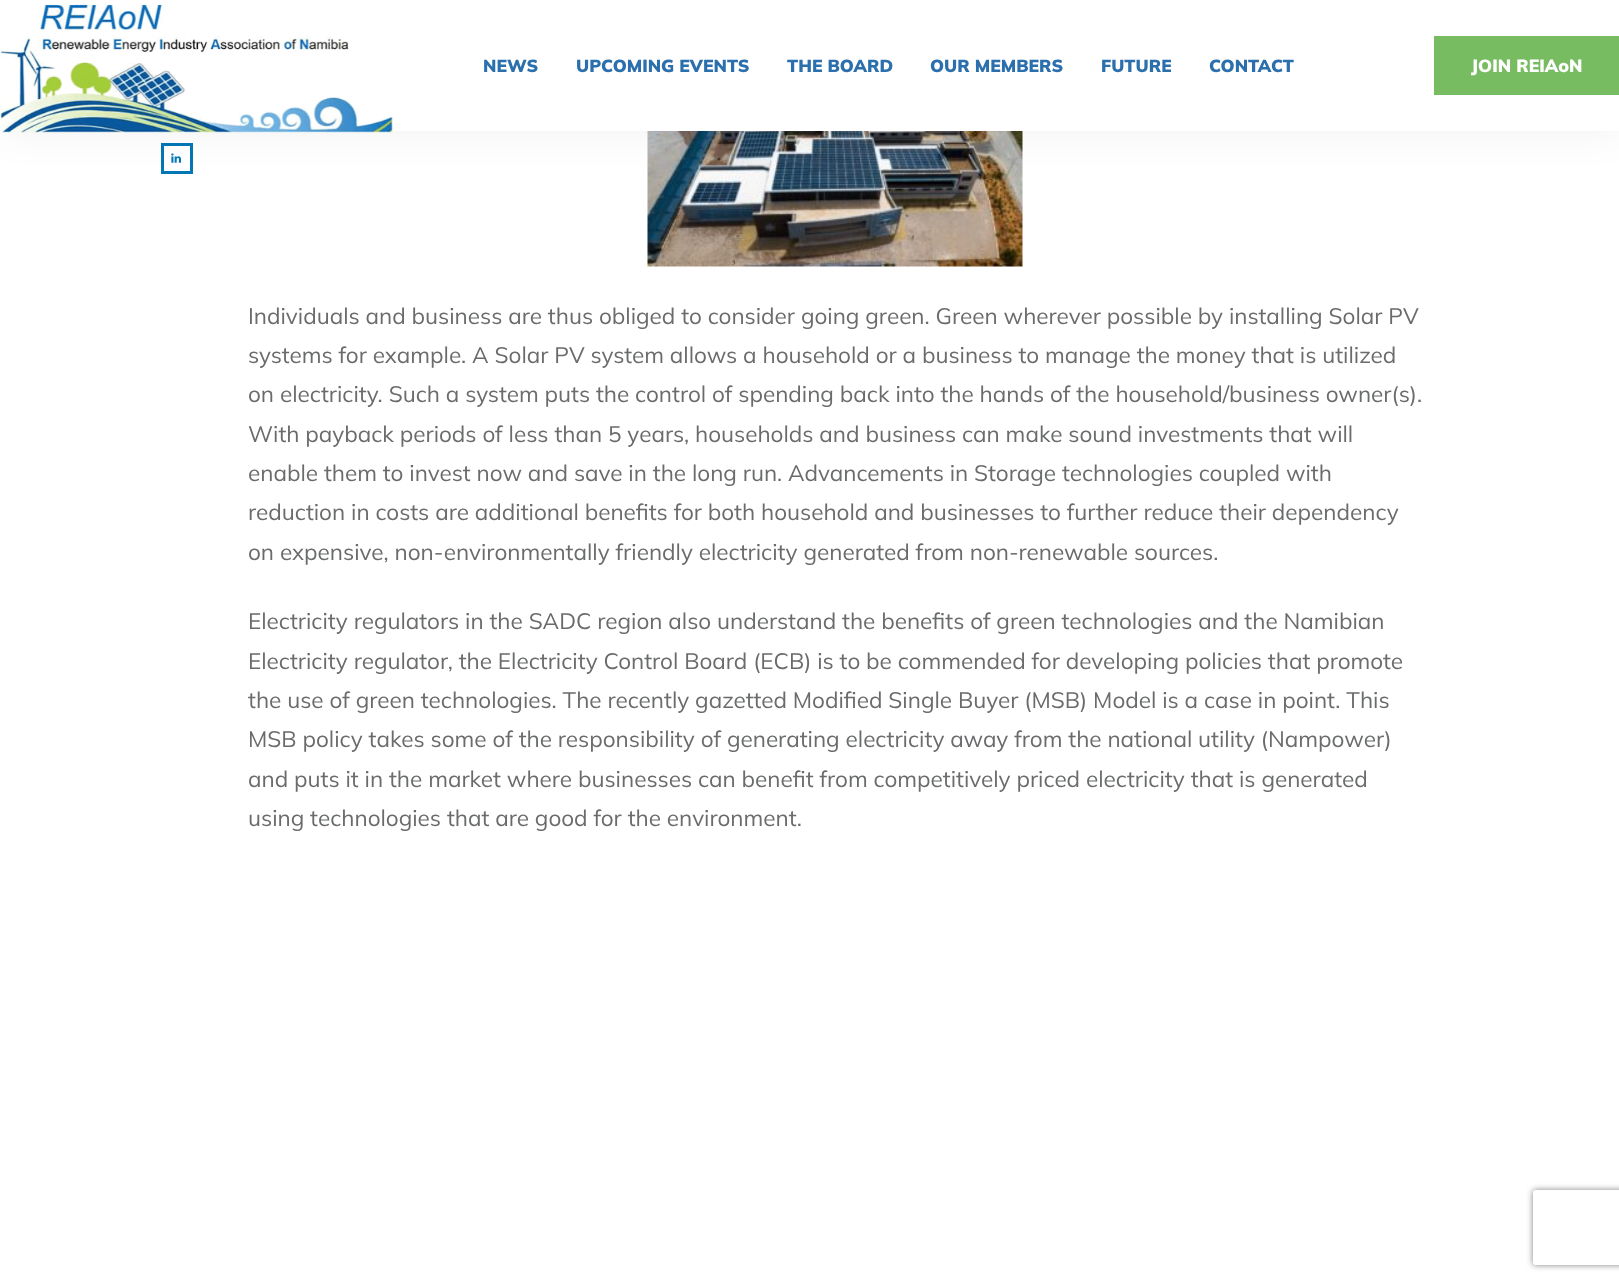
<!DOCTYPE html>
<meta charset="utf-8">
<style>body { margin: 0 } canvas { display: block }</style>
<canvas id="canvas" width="1619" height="1282"></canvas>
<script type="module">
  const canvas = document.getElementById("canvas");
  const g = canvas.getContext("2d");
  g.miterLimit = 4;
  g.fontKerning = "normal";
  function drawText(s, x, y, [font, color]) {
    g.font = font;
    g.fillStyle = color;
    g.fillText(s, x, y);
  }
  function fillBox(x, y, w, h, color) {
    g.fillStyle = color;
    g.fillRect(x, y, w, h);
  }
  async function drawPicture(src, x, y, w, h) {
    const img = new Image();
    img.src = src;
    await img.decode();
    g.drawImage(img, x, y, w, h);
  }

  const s1 = ["900 17.5px Mulish", "#2B6FAD"];
  const s2 = ["900 17.5px Muli", "#FFFFFF"];
  const s3 = ["22.5px Mulish", "#6A6B6C"];

  fillBox(0, 0, 1619, 1282, "#FFFFFF");
  g.strokeStyle = "#0177B5";
  g.lineWidth = 3;
  g.strokeRect(162.5, 144.5, 29, 28);
  await drawPicture("pic2.png", 171, 153, 10, 10);
  await drawPicture("pic3.png", 647, 131, 376, 136);
  g.fillStyle = "rgba(0, 0, 0, 0.05)";
  g.filter = "blur(19px)";
  g.beginPath();
  g.rect(0, 3, 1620, 131);
  g.fill();
  g.filter = "none";
  fillBox(0, 0, 1619, 131, "#FFFFFF");
  await drawPicture("pic1.png", 0, 2, 393, 131);
  drawText("NEWS", 483, 72, s1);
  drawText("UPCOMING EVENTS", 576, 72, s1);
  drawText("THE BOARD", 787, 72, s1);
  drawText("OUR MEMBERS", 930, 72, s1);
  g.save();
  g.beginPath();
  g.rect(1101, 49, 70, 35);
  g.clip();
  drawText("FUTURE", 1101, 72, s1);
  g.restore();
  drawText("CONTACT", 1209, 72, s1);
  fillBox(1434, 36, 185, 59, "#78BC62");
  drawText("JOIN REIAoN", 1471, 72, s2);
  drawText("Individuals and business are thus obliged to consider going green. Green wherever possible by installing Solar PV", 248, 324, s3);
  drawText("systems for example. A Solar PV system allows a household or a business to manage the money that is utilized", 248, 363, s3);
  drawText("on electricity. Such a system puts the control of spending back into the hands of the household/business owner(s).", 248, 402, s3);
  drawText("With payback periods of less than 5 years, households and business can make sound investments that will", 248, 442, s3);
  drawText("enable them to invest now and save in the long run. Advancements in Storage technologies coupled with", 248, 481, s3);
  drawText("reduction in costs are additional benefits for both household and businesses to further reduce their dependency", 248, 520, s3);
  drawText("on expensive, non-environmentally friendly electricity generated from non-renewable sources.", 248, 560, s3);
  drawText("Electricity regulators in the SADC region also understand the benefits of green technologies and the Namibian", 248, 629, s3);
  drawText("Electricity regulator, the Electricity Control Board (ECB) is to be commended for developing policies that promote", 248, 669, s3);
  drawText("the use of green technologies. The recently gazetted Modified Single Buyer (MSB) Model is a case in point. This", 248, 708, s3);
  drawText("MSB policy takes some of the responsibility of generating electricity away from the national utility (Nampower)", 248, 747, s3);
  drawText("and puts it in the market where businesses can benefit from competitively priced electricity that is generated", 248, 787, s3);
  drawText("using technologies that are good for the environment.", 248, 826, s3);
  g.save();
  g.beginPath();
  g.moveTo(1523, 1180);
  g.lineTo(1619, 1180);
  g.lineTo(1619, 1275);
  g.lineTo(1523, 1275);
  g.closePath();
  g.moveTo(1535.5, 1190);
  g.lineTo(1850.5, 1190);
  g.bezierCurveTo(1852, 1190, 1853, 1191, 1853, 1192.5);
  g.lineTo(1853, 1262.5);
  g.bezierCurveTo(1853, 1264, 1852, 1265, 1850.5, 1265);
  g.lineTo(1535.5, 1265);
  g.bezierCurveTo(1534, 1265, 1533, 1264, 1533, 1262.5);
  g.lineTo(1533, 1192.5);
  g.bezierCurveTo(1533, 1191, 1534, 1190, 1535.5, 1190);
  g.closePath();
  g.clip("evenodd");
  g.fillStyle = "#808080";
  g.filter = "blur(3px)";
  g.beginPath();
  g.roundRect(1533, 1190, 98, 75, 2.5);
  g.fill();
  g.filter = "none";
  g.restore();
</script>
